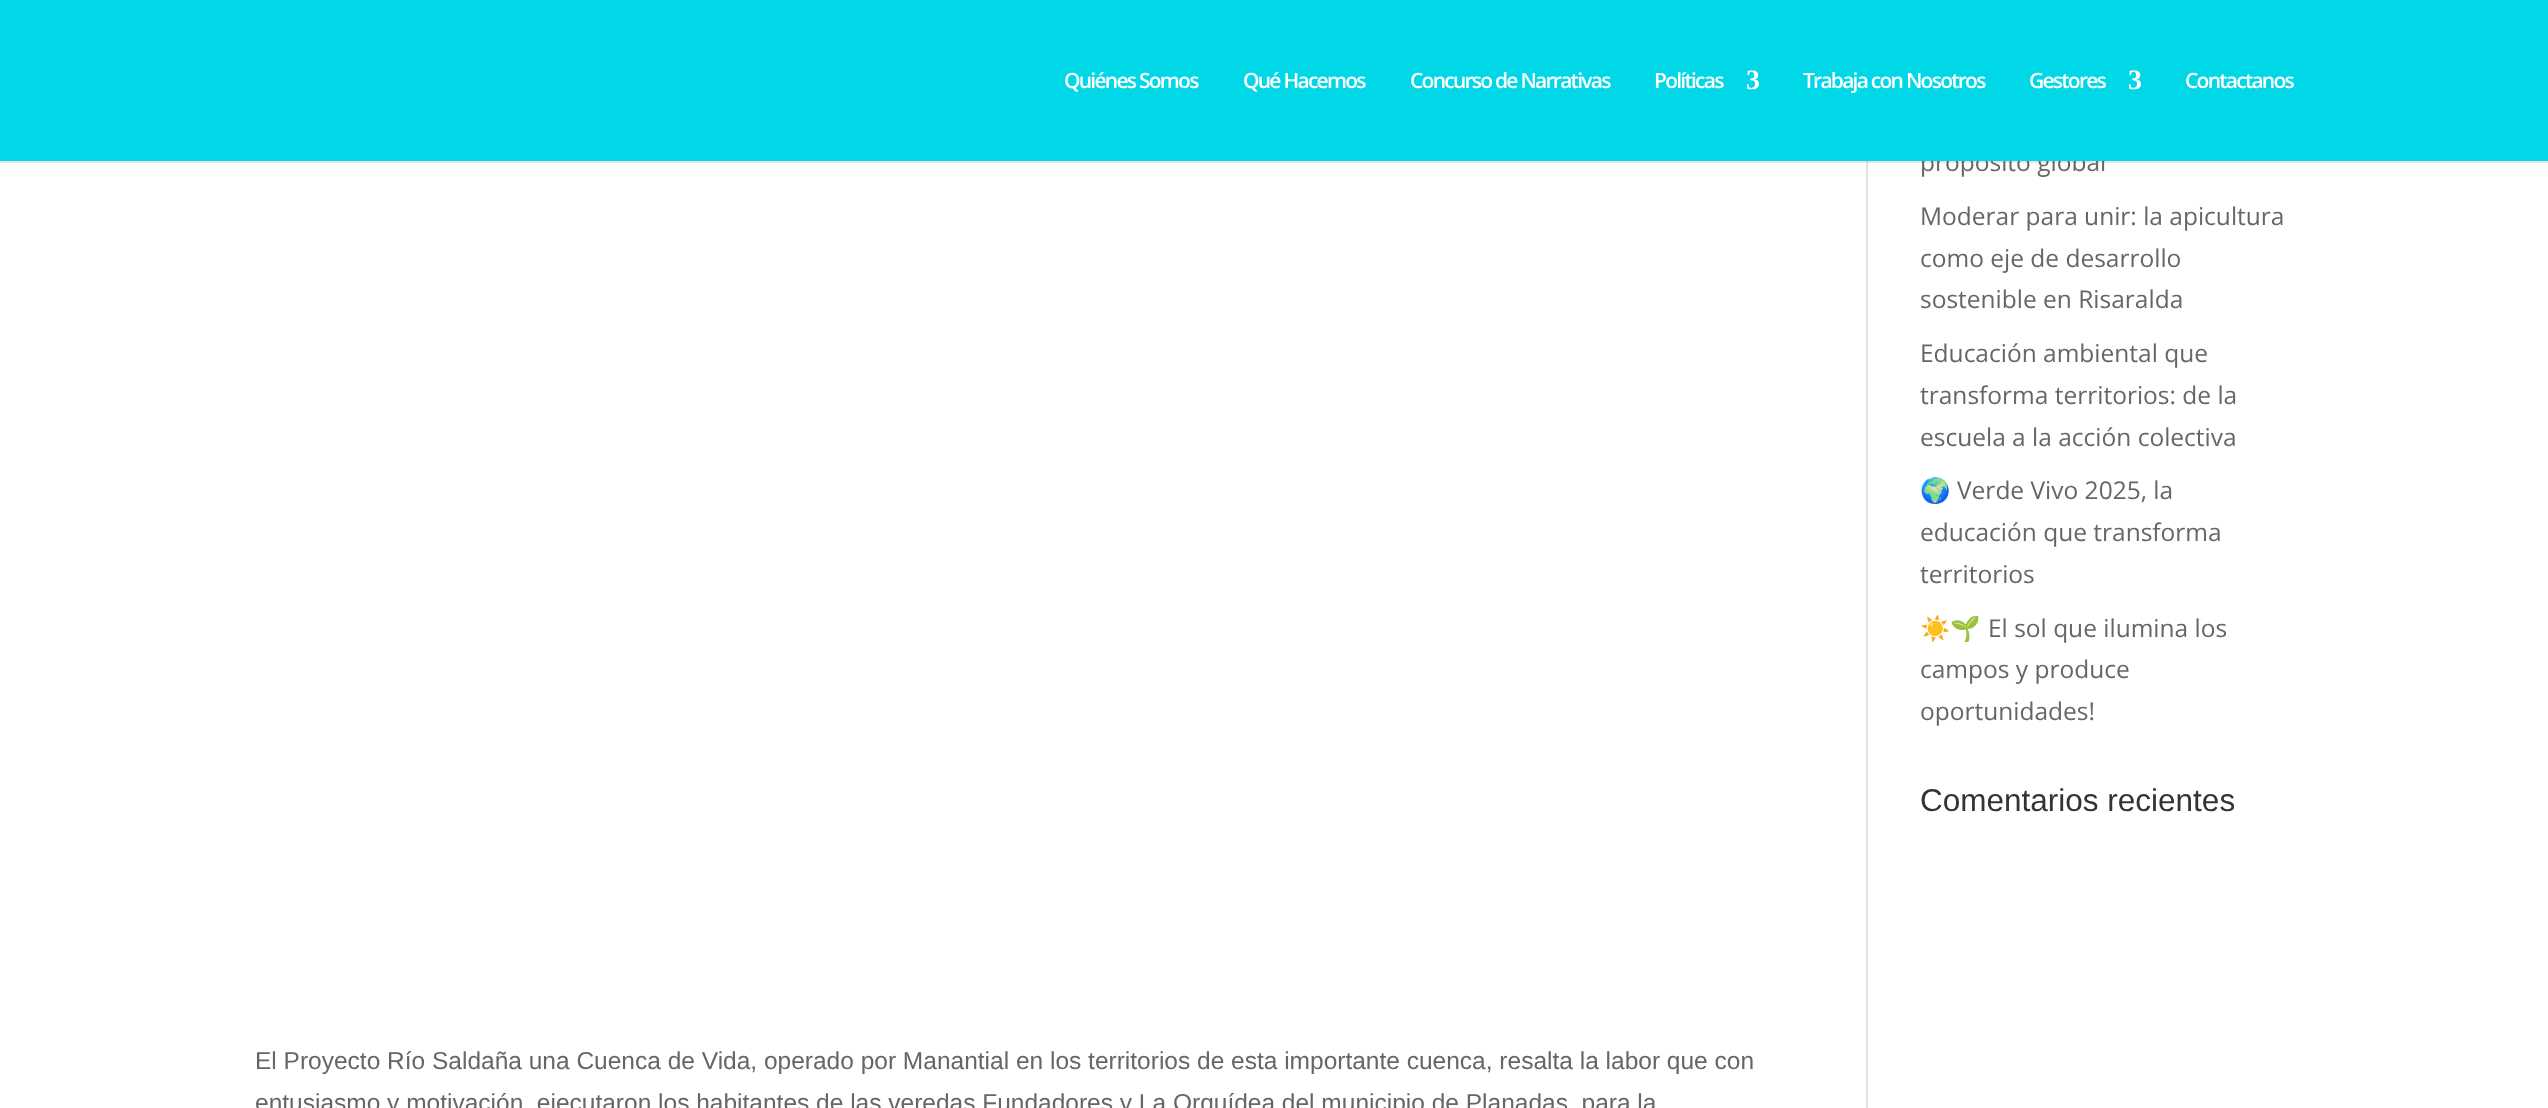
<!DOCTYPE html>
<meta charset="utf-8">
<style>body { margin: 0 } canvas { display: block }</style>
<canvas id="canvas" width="2548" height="1108"></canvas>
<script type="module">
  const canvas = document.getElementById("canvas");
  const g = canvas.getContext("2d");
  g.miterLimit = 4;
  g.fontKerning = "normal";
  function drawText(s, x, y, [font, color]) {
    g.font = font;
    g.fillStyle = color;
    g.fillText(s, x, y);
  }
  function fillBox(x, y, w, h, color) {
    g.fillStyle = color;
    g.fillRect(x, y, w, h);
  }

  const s1 = ["24.5px Open Sans", "#666666"];
  const s2 = ["600 21px Open Sans", "#FFFFFF"];
  const s3 = ["bold 28px Liberation Serif", "#FFFFFF"];
  const s4 = ["24.5px Noto Color Emoji", "#666666"];
  const s5 = ["31.5px Liberation Sans", "#333333"];
  const s6 = ["24.5px Liberation Sans", "#666666"];

  fillBox(0, 0, 2548, 1108, "#FFFFFF");
  fillBox(1866, 161, 2, 947, "#E2E2E2");
  fillBox(0, 161, 2548, 2, "rgba(0, 0, 0, 0.1)");
  drawText("propósito global", 1920, 171, s1);
  fillBox(0, 0, 2548, 161, "#00D8E8");
  g.letterSpacing = "-1.75px";
  drawText("Quiénes Somos", 1064, 88, s2);
  drawText("Qué Hacemos", 1243, 88, s2);
  drawText("Concurso de Narrativas", 1410, 88, s2);
  drawText("Políticas", 1654, 88, s2);
  drawText("3", 1746, 89, s3);
  drawText("Trabaja con Nosotros", 1803, 88, s2);
  drawText("Gestores", 2029, 88, s2);
  drawText("3", 2128, 89, s3);
  drawText("Contactanos", 2185, 88, s2);
  g.letterSpacing = "0px";
  drawText("Moderar para unir: la apicultura", 1920, 225, s1);
  drawText("como eje de desarrollo", 1920, 267, s1);
  drawText("sostenible en Risaralda", 1920, 308, s1);
  drawText("Educación ambiental que", 1920, 362, s1);
  drawText("transforma territorios: de la", 1920, 404, s1);
  drawText("escuela a la acción colectiva", 1920, 446, s1);
  drawText("🌍", 1920, 499, s4);
  drawText("Verde Vivo 2025, la", 1957, 499, s1);
  drawText("educación que transforma", 1920, 541, s1);
  drawText("territorios", 1920, 583, s1);
  drawText("☀️🌱", 1920, 637, s4);
  drawText("El sol que ilumina los", 1988, 637, s1);
  drawText("campos y produce", 1920, 678, s1);
  drawText("oportunidades!", 1920, 720, s1);
  drawText("Comentarios recientes", 1920, 811, s5);
  drawText("El Proyecto Río Saldaña una Cuenca de Vida, operado por Manantial en los territorios de esta importante cuenca, resalta la labor que con", 255, 1069, s6);
  drawText("entusiasmo y motivación, ejecutaron los habitantes de las veredas Fundadores y La Orquídea del municipio de Planadas, para la", 255, 1111, s6);
</script>
